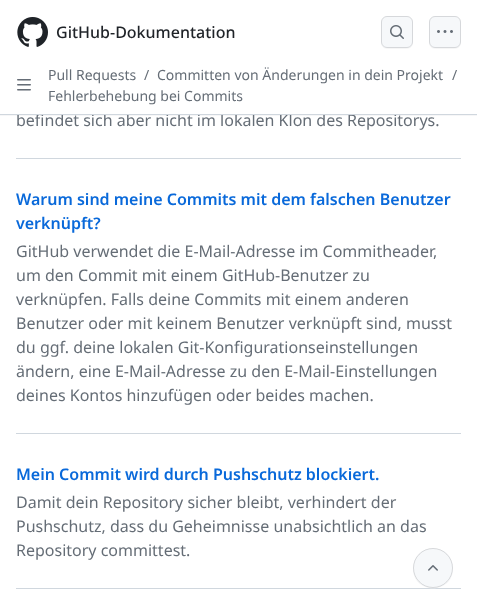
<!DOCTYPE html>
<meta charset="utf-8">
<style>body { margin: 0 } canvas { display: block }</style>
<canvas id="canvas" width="477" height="612"></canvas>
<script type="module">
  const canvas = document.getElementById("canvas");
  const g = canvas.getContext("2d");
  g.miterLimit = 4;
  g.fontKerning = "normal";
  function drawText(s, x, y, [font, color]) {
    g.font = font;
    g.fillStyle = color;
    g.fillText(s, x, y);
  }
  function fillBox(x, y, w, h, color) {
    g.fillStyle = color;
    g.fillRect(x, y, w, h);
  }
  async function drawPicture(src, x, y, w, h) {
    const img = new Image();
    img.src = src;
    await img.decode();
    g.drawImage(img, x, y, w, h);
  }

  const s1 = ["16px Noto Sans", "#656D76"];
  const s2 = ["500 16px Noto Sans", "#1F2328"];
  const s3 = ["14px Noto Sans", "#656D76"];
  const s4 = ["600 16px Noto Sans", "#0969DA"];

  fillBox(0, 0, 477, 612, "#FFFFFF");
  fillBox(0, 115, 477, 1, "rgba(31, 35, 40, 0.04)");
  drawText("befindet sich aber nicht im lokalen Klon des Repositorys.", 16, 126, s1);
  fillBox(17, 113, 308, 1, "#FFFFFF");
  fillBox(0, 114, 477, 1, "#D0D7DE");
  await drawPicture("pic1.png", 17, 17, 31, 30);
  drawText("GitHub-Dokumentation", 56, 38, s2);
  g.fillStyle = "#F6F6F6";
  g.beginPath();
  g.moveTo(381, 42);
  g.bezierCurveTo(381, 48.5, 385, 49, 390.5, 49);
  g.lineTo(403.5, 49);
  g.bezierCurveTo(409, 49, 413, 48.5, 413, 42);
  g.bezierCurveTo(413, 45.5, 410.5, 48, 407, 48);
  g.lineTo(387, 48);
  g.bezierCurveTo(383.5, 48, 381, 45.5, 381, 42);
  g.closePath();
  g.fill();
  g.fillStyle = "#F6F8FA";
  g.beginPath();
  g.roundRect(381.5, 16.5, 31, 31, 5.5);
  g.fill();
  g.strokeStyle = "#D6D8DB";
  g.stroke();
  await drawPicture("pic2.png", 390, 25, 14, 14);
  g.fillStyle = "#F6F6F6";
  g.beginPath();
  g.moveTo(429, 42);
  g.bezierCurveTo(429, 48.5, 433, 49, 438.5, 49);
  g.lineTo(451.5, 49);
  g.bezierCurveTo(457, 49, 461, 48.5, 461, 42);
  g.bezierCurveTo(461, 45.5, 458.5, 48, 455, 48);
  g.lineTo(435, 48);
  g.bezierCurveTo(431.5, 48, 429, 45.5, 429, 42);
  g.closePath();
  g.fill();
  g.fillStyle = "#F6F8FA";
  g.beginPath();
  g.roundRect(429.5, 16.5, 31, 31, 5.5);
  g.fill();
  g.stroke();
  await drawPicture("pic3.png", 437, 30, 16, 3);
  await drawPicture("pic4.png", 17, 79, 14, 12);
  drawText("Pull Requests", 48, 80, s3);
  drawText("/", 144, 80, s3);
  drawText("Committen von Änderungen in dein Projekt", 157, 80, s3);
  drawText("/", 452, 80, s3);
  drawText("Fehlerbehebung bei Commits", 48, 101, s3);
  fillBox(16, 158, 445, 1, "#D0D7DE");
  fillBox(16, 433, 445, 1, "#D0D7DE");
  drawText("Warum sind meine Commits mit dem falschen Benutzer", 16, 205, s4);
  drawText("verknüpft?", 16, 229, s4);
  drawText("GitHub verwendet die E-Mail-Adresse im Commitheader,", 16, 257, s1);
  drawText("um den Commit mit einem GitHub-Benutzer zu", 16, 281, s1);
  drawText("verknüpfen. Falls deine Commits mit einem anderen", 16, 305, s1);
  drawText("Benutzer oder mit keinem Benutzer verknüpft sind, musst", 16, 329, s1);
  drawText("du ggf. deine lokalen Git-Konfigurationseinstellungen", 16, 353, s1);
  drawText("ändern, eine E-Mail-Adresse zu den E-Mail-Einstellungen", 16, 377, s1);
  drawText("deines Kontos hinzufügen oder beides machen.", 16, 401, s1);
  fillBox(16, 588, 445, 1, "#D0D7DE");
  drawText("Mein Commit wird durch Pushschutz blockiert.", 16, 480, s4);
  drawText("Damit dein Repository sicher bleibt, verhindert der", 16, 508, s1);
  drawText("Pushschutz, dass du Geheimnisse unabsichtlich an das", 16, 532, s1);
  drawText("Repository committest.", 16, 556, s1);
  g.fillStyle = "#F6F6F6";
  g.beginPath();
  g.moveTo(413, 568);
  g.bezierCurveTo(412, 595, 454, 595, 453, 568);
  g.bezierCurveTo(452, 594, 414, 594, 413, 568);
  g.closePath();
  g.fill();
  g.fillStyle = "#F6F8FA";
  g.beginPath();
  g.arc(433, 568, 20, 0, Math.PI * 2);
  g.fill();
  g.beginPath();
  g.arc(433, 568, 19.5, 0, Math.PI * 2);
  g.strokeStyle = "rgba(31, 35, 40, 0.15)";
  g.stroke();
  await drawPicture("pic5.png", 428, 565, 10, 6);
</script>
